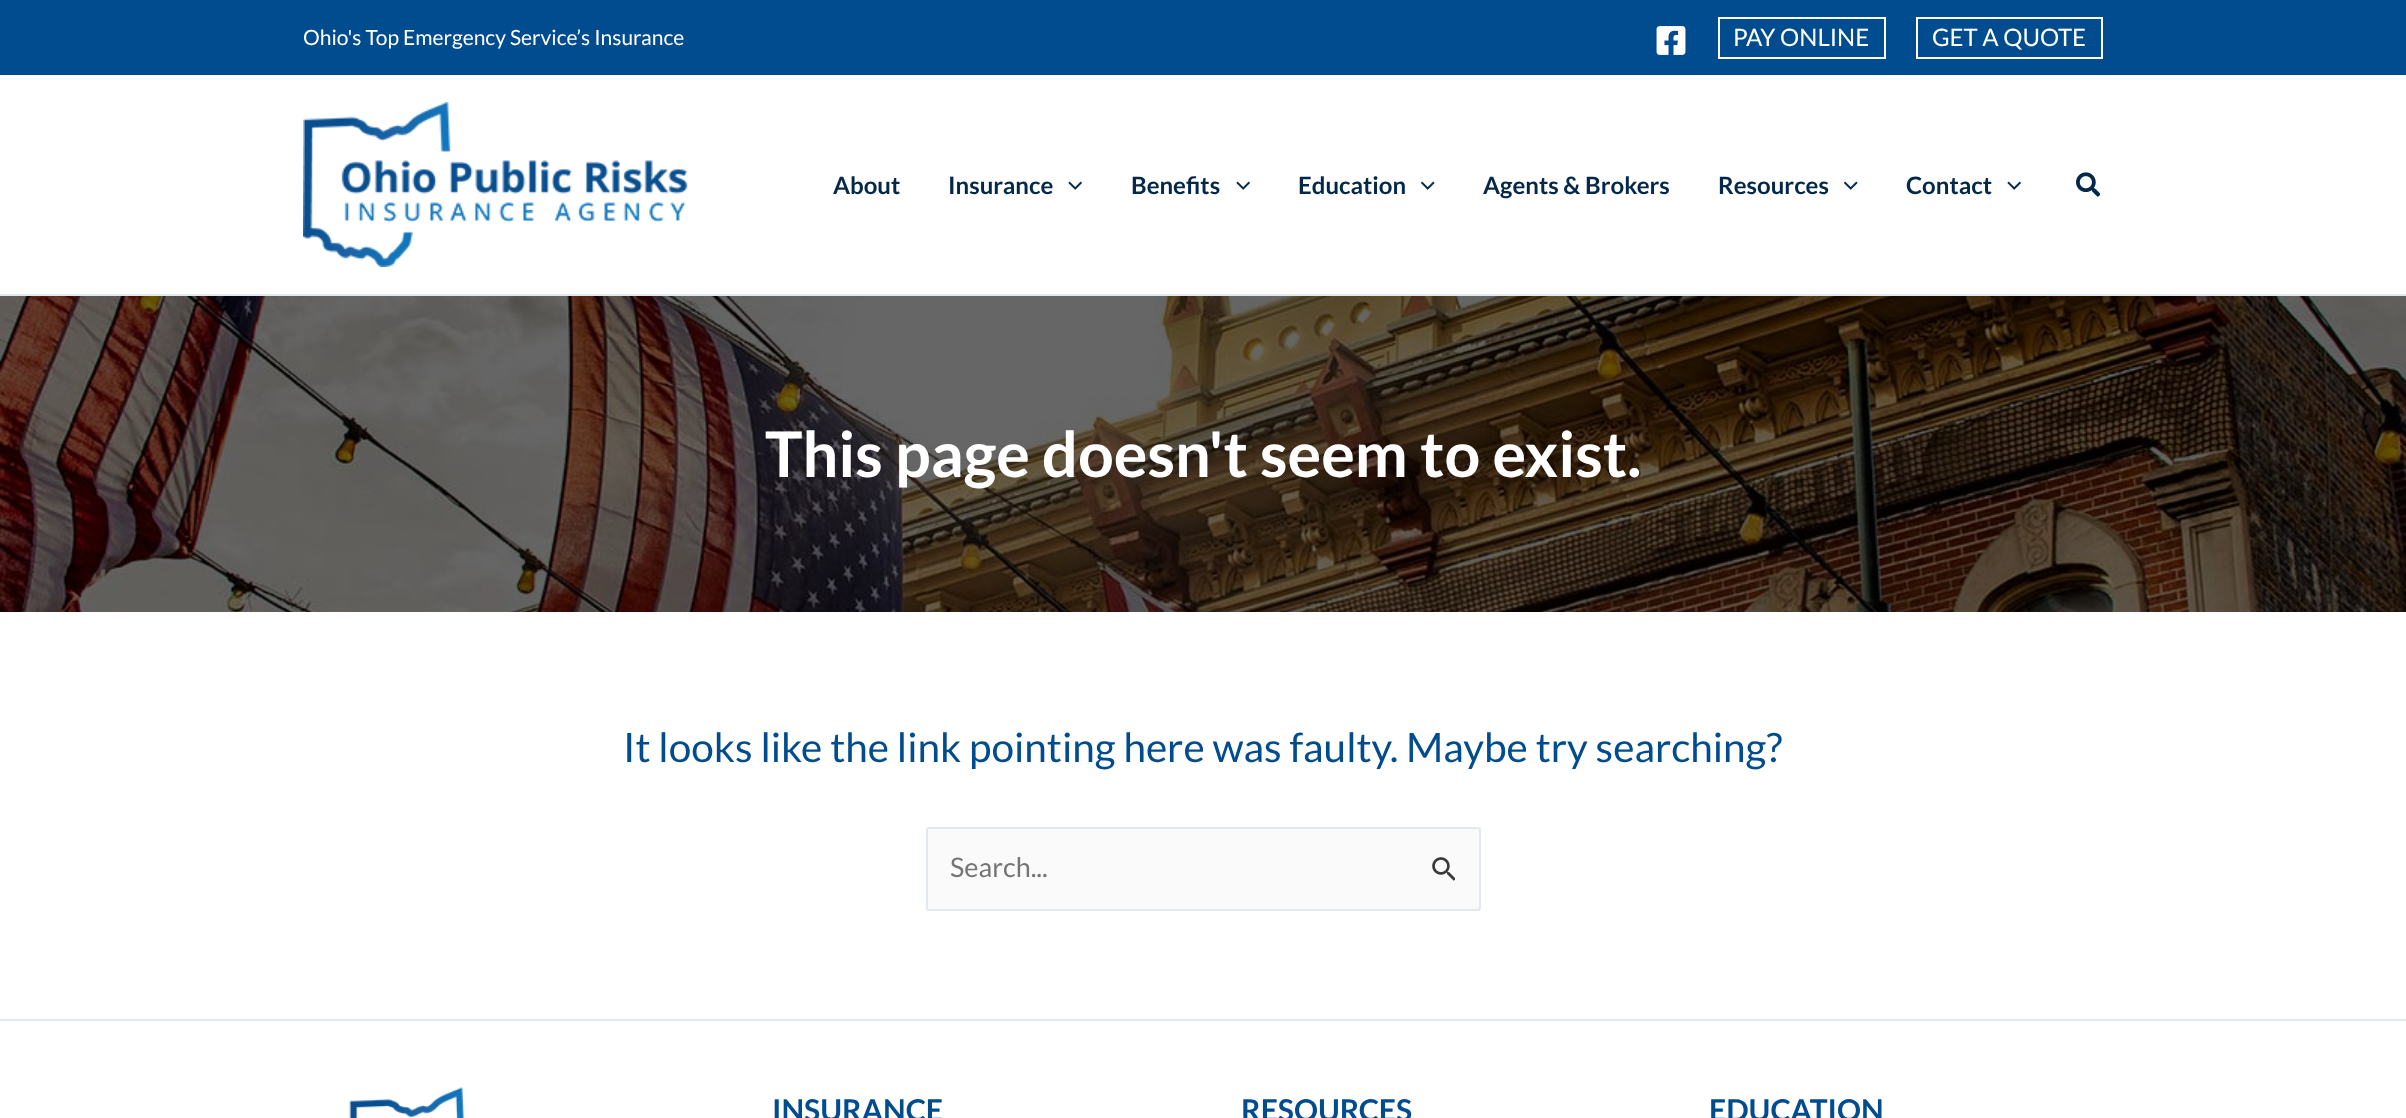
<!DOCTYPE html>
<meta charset="utf-8">
<style>body { margin: 0 } canvas { display: block }</style>
<canvas id="canvas" width="2406" height="1118"></canvas>
<script type="module">
  const canvas = document.getElementById("canvas");
  const g = canvas.getContext("2d");
  g.miterLimit = 4;
  g.fontKerning = "normal";
  function drawText(s, x, y, [font, color]) {
    g.font = font;
    g.fillStyle = color;
    g.fillText(s, x, y);
  }
  function fillBox(x, y, w, h, color) {
    g.fillStyle = color;
    g.fillRect(x, y, w, h);
  }
  async function drawPicture(src, x, y, w, h) {
    const img = new Image();
    img.src = src;
    await img.decode();
    g.drawImage(img, x, y, w, h);
  }

  const s1 = ["21px Lato", "#FFFFFF"];
  const s2 = ["24px Lato", "#FFFFFF"];
  const s3 = ["bold 24px Lato", "#032849"];
  const s4 = ["bold 63px Lato", "#FFFFFF"];
  const s5 = ["40.5px Lato", "#014C8F"];
  const s6 = ["27px Lato", "#757575"];
  const s7 = ["bold 30px Lato", "#014C8F"];

  fillBox(0, 0, 2406, 1118, "#FFFFFF");
  fillBox(0, 0, 2406, 75, "#014C8F");
  drawText("Ohio's Top Emergency Service’s Insurance", 303, 45, s1);
  await drawPicture("pic1.png", 1656, 26, 30, 29);
  g.strokeStyle = "#FFFFFF";
  g.lineWidth = 2;
  g.strokeRect(1719, 18, 166, 40);
  drawText("PAY ONLINE", 1733, 46, s2);
  g.strokeRect(1917, 18, 185, 40);
  drawText("GET A QUOTE", 1932, 46, s2);
  fillBox(0, 294, 2406, 2, "#E2E8F0");
  await drawPicture("pic2.png", 303, 102, 385, 165);
  drawText("About", 833, 194, s3);
  drawText("Insurance", 948, 194, s3);
  await drawPicture("pic3.png", 1068, 181, 14, 9);
  drawText("Benefits", 1131, 194, s3);
  await drawPicture("pic3.png", 1236, 181, 14, 9);
  drawText("Education", 1298, 194, s3);
  await drawPicture("pic4.png", 1421, 181, 14, 9);
  drawText("Agents & Brokers", 1483, 194, s3);
  drawText("Resources", 1718, 194, s3);
  await drawPicture("pic4.png", 1844, 181, 14, 9);
  drawText("Contact", 1906, 194, s3);
  await drawPicture("pic3.png", 2007, 181, 14, 9);
  await drawPicture("pic5.png", 2076, 172, 24, 25);
  await drawPicture("pic6.png", 0, 296, 2406, 316);
  drawText("This page doesn't seem to exist.", 765, 477, s4);
  drawText("It looks like the link pointing here was faulty. Maybe try searching?", 623, 762, s5);
  g.fillStyle = "#FAFAFA";
  g.beginPath();
  g.roundRect(927, 828, 553, 82, 2);
  g.fill();
  g.strokeStyle = "#E2E8F0";
  g.stroke();
  drawText("Search...", 950, 877, s6);
  await drawPicture("pic7.png", 1432, 857, 23, 24);
  fillBox(0, 1019, 2406, 2, "#E2E8F0");
  await drawPicture("pic8.png", 349, 1087, 115, 31);
  drawText("INSURANCE", 772, 1121, s7);
  drawText("RESOURCES", 1241, 1121, s7);
  drawText("EDUCATION", 1709, 1121, s7);
</script>
